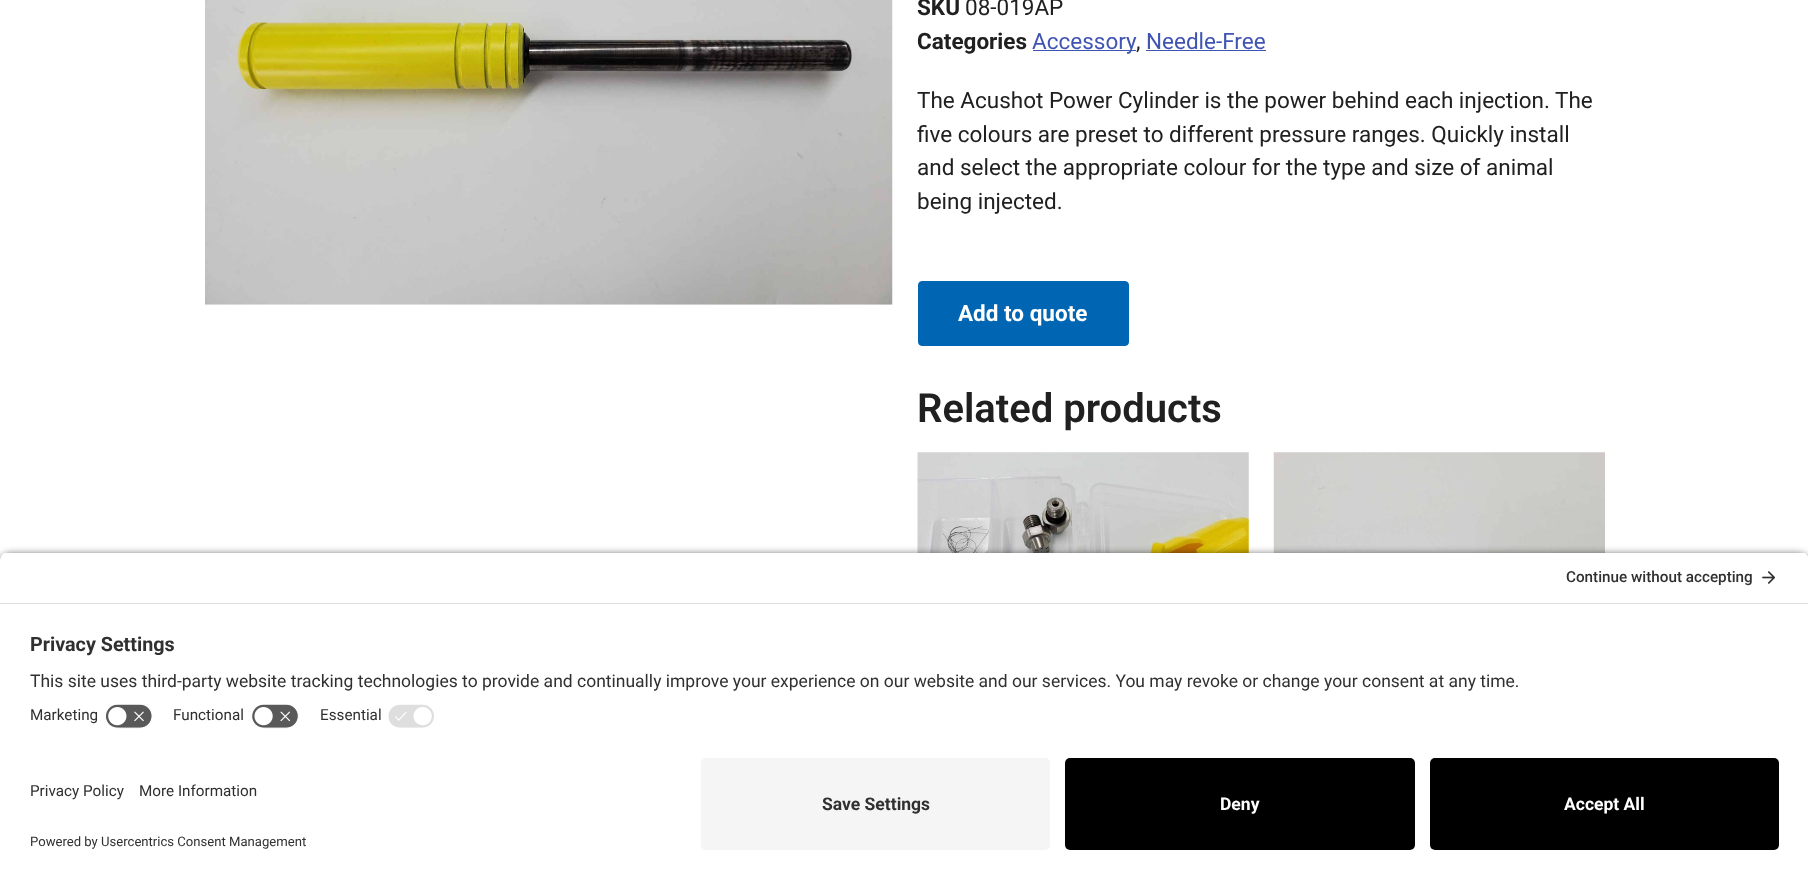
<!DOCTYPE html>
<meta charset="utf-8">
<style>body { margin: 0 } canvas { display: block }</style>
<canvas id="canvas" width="1808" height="880"></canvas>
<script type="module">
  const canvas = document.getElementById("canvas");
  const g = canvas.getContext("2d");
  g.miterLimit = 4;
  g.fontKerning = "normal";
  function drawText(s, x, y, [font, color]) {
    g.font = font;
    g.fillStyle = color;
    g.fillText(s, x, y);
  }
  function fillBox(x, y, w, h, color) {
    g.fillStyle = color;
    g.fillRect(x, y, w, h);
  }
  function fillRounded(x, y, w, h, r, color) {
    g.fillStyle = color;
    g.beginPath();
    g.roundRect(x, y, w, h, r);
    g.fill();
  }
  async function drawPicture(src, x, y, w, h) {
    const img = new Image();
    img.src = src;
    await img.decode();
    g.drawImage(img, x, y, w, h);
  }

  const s1 = ["bold 22.5px Roboto", "#202020"];
  const s2 = ["22.5px Roboto", "#202020"];
  const s3 = ["22.5px Roboto", "#4054B2"];
  const s4 = ["bold 22.5px Roboto", "#FFFFFF"];
  const s5 = ["600 40px Roboto", "#202020"];
  const s6 = ["500 15.25px Roboto", "#303030"];
  const s7 = ["bold 19.75px Roboto", "#303030"];
  const s8 = ["17.5px Roboto", "#303030"];
  const s9 = ["15.25px Roboto", "#303030"];
  const s10 = ["13.1px Roboto", "#303030"];
  const s11 = ["bold 17.5px Roboto", "#303030"];
  const s12 = ["bold 17.5px Roboto", "#FFFFFF"];

  fillBox(0, 0, 1808, 880, "#FFFFFF");
  await drawPicture("pic1.png", 205, 0, 688, 305);
  drawText("SKU", 917, 15, s1);
  drawText("08-019AP", 965, 15, s2);
  drawText("Categories", 917, 49, s1);
  fillBox(1033, 50, 103, 1, "#4054B2");
  drawText("Accessory", 1032, 49, s3);
  drawText(",", 1136, 49, s2);
  fillBox(1146, 50, 120, 1, "#4054B2");
  drawText("Needle-Free", 1146, 49, s3);
  drawText("The Acushot Power Cylinder is the power behind each injection. The", 917, 108, s2);
  drawText("five colours are preset to different pressure ranges. Quickly install", 917, 142, s2);
  drawText("and select the appropriate colour for the type and size of animal", 917, 175, s2);
  drawText("being injected.", 917, 209, s2);
  g.fillStyle = "#0066B4";
  g.beginPath();
  g.roundRect(918.5, 281.5, 210, 64, 3.5);
  g.fill();
  g.strokeStyle = "#0066B4";
  g.stroke();
  drawText("Add to quote", 958, 321, s4);
  drawText("Related products", 917, 422, s5);
  await drawPicture("pic2.png", 917, 452, 332, 101);
  await drawPicture("pic3.png", 1273, 452, 332, 101);
  g.fillStyle = "rgba(0, 0, 0, 0.8)";
  g.filter = "blur(4.5px)";
  g.beginPath();
  g.roundRect(0, 555, 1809, 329, 10);
  g.fill();
  g.filter = "none";
  g.save();
  g.beginPath();
  g.moveTo(10, 551);
  g.lineTo(1799, 551);
  g.bezierCurveTo(1804.5, 551, 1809, 555.5, 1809, 561);
  g.lineTo(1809, 748);
  g.lineTo(0, 748);
  g.lineTo(0, 561);
  g.bezierCurveTo(0, 555.5, 4.5, 551, 10, 551);
  g.closePath();
  g.clip();
  fillBox(0, 553, 1808, 50, "#FFFFFF");
  g.restore();
  fillBox(0, 603, 1808, 1, "#DEDEDE");
  drawText("Continue without accepting", 1566, 582, s6);
  await drawPicture("pic4.png", 1762, 571, 13, 13);
  fillBox(0, 604, 1808, 276, "#FFFFFF");
  drawText("Privacy Settings", 30, 651, s7);
  drawText("This site uses third-party website tracking technologies to provide and continually improve your experience on our website and our services. You may revoke or change your consent at any time.", 30, 687, s8);
  drawText("Marketing", 30, 720, s9);
  await drawPicture("pic5.png", 105, 704, 48, 25);
  drawText("Functional", 173, 720, s9);
  await drawPicture("pic6.png", 251, 704, 48, 25);
  drawText("Essential", 320, 720, s9);
  await drawPicture("pic7.png", 388, 704, 46, 24);
  drawText("Privacy Policy", 30, 796, s9);
  drawText("More Information", 139, 796, s9);
  drawText("Powered by Usercentrics Consent Management", 30, 846, s10);
  fillRounded(701, 758, 349, 92, 5, "#F5F5F5");
  drawText("Save Settings", 822, 810, s11);
  fillRounded(1065, 758, 350, 92, 5, "#000000");
  drawText("Deny", 1220, 810, s12);
  fillRounded(1430, 758, 349, 92, 5, "#000000");
  drawText("Accept All", 1564, 810, s12);
</script>
